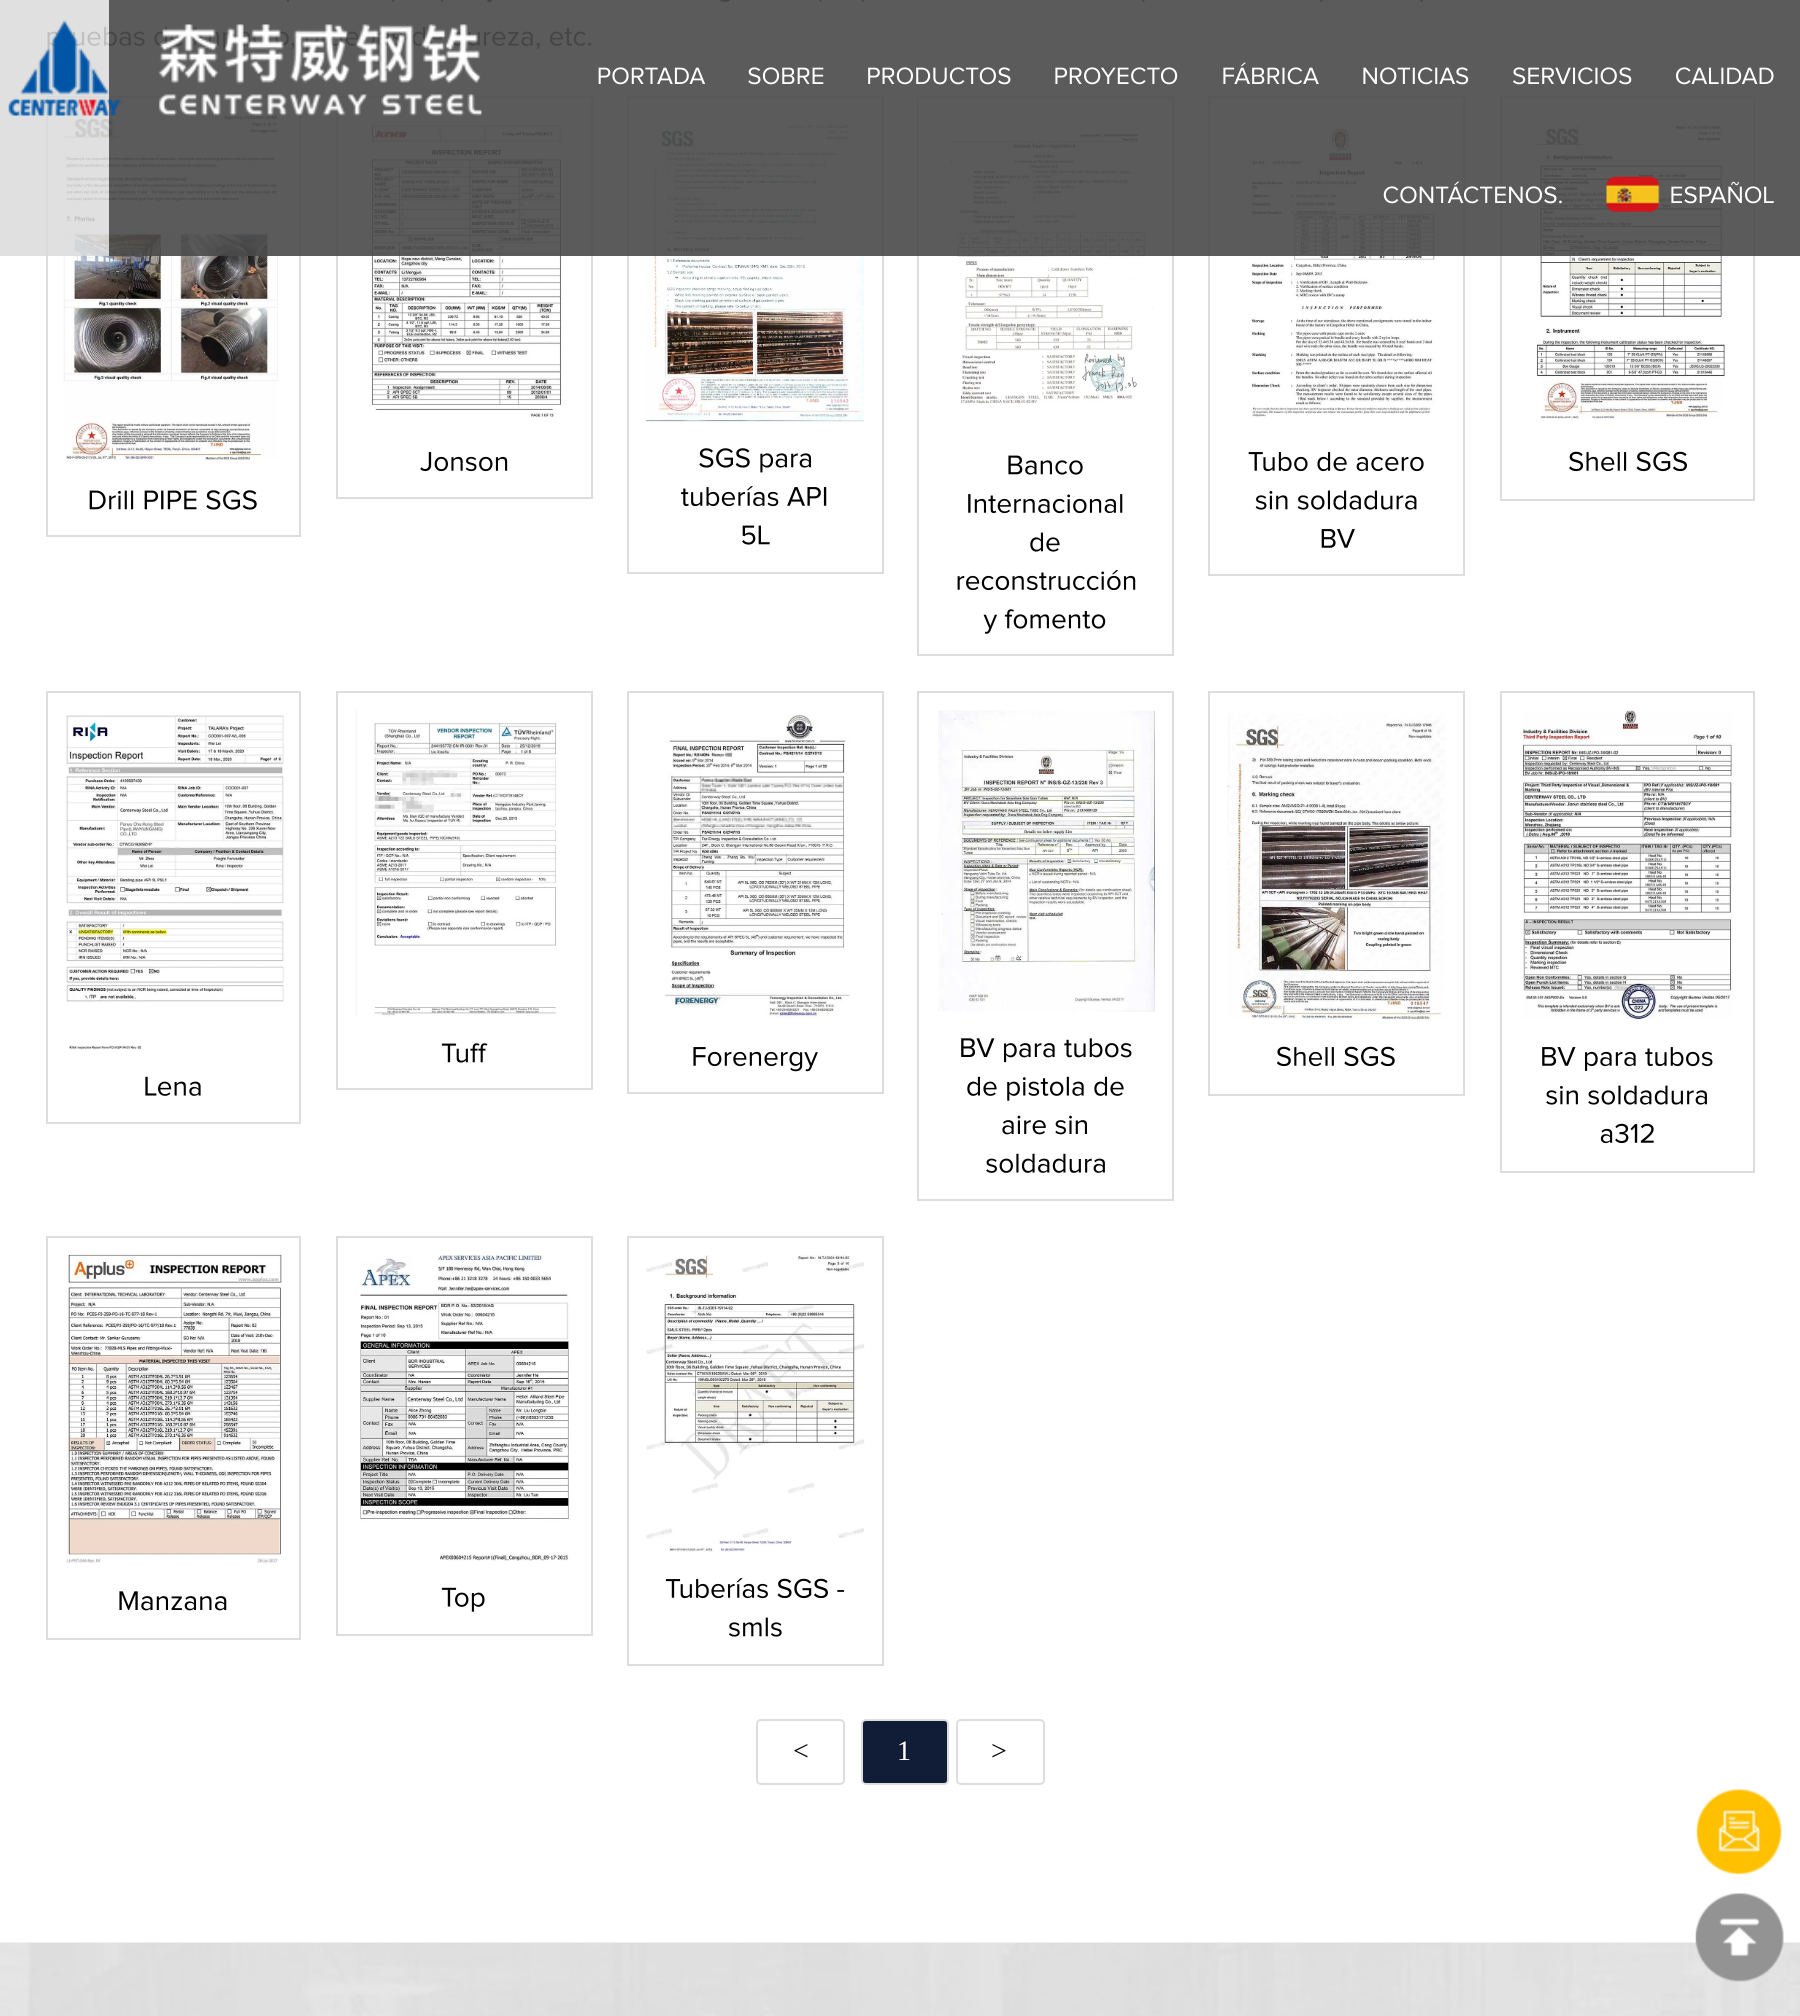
<!DOCTYPE html>
<meta charset="utf-8">
<style>body { margin: 0 } canvas { display: block }</style>
<canvas id="canvas" width="1800" height="2016"></canvas>
<script type="module">
  const canvas = document.getElementById("canvas");
  const g = canvas.getContext("2d");
  g.miterLimit = 4;
  g.fontKerning = "normal";
  function drawText(s, x, y, [font, color]) {
    g.font = font;
    g.fillStyle = color;
    g.fillText(s, x, y);
  }
  function fillBox(x, y, w, h, color) {
    g.fillStyle = color;
    g.fillRect(x, y, w, h);
  }
  async function drawPicture(src, x, y, w, h) {
    const img = new Image();
    img.src = src;
    await img.decode();
    g.drawImage(img, x, y, w, h);
  }

  const s1 = ["28px Liberation Serif", "#000000"];
  const s2 = ["28px Liberation Serif", "#FFFFFF"];

  fillBox(0, 0, 1800, 2016, "#FFFFFF");
  await drawPicture("pic14.png", 47, 26, 545, 25);
  g.strokeStyle = "#DDDDDD";
  g.lineWidth = 2;
  g.strokeRect(47, 97, 253, 439);
  await drawPicture("pic15.png", 63, 115, 215, 346);
  fillBox(0, 0, 109, 256, "rgba(218, 218, 218, 0.85)");
  await drawPicture("pic13.png", 287, 0, 1136, 2);
  g.strokeRect(337, 97, 255, 401);
  await drawPicture("pic17.png", 370, 124, 193, 294);
  g.strokeRect(628, 97, 255, 476);
  await drawPicture("pic19.png", 645, 115, 220, 307);
  g.strokeRect(918, 97, 255, 558);
  await drawPicture("pic23.png", 950, 133, 205, 271);
  g.strokeRect(1209, 97, 255, 478);
  await drawPicture("pic29.png", 1250, 127, 185, 291);
  g.strokeRect(1501, 97, 253, 403);
  await drawPicture("pic33.png", 1535, 124, 191, 296);
  fillBox(109, 0, 1691, 256, "rgba(73, 73, 73, 0.9)");
  await drawPicture("pic1.png", 8, 20, 474, 96);
  await drawPicture("pic2.png", 598, 67, 107, 18);
  await drawPicture("pic3.png", 748, 67, 76, 18);
  await drawPicture("pic4.png", 868, 67, 143, 18);
  await drawPicture("pic5.png", 1055, 67, 123, 18);
  await drawPicture("pic6.png", 1223, 62, 96, 23);
  await drawPicture("pic7.png", 1363, 67, 106, 18);
  await drawPicture("pic8.png", 1513, 67, 119, 18);
  await drawPicture("pic9.png", 1676, 67, 98, 18);
  await drawPicture("pic10.png", 1383, 181, 179, 23);
  await drawPicture("pic11.png", 1606, 176, 54, 36);
  await drawPicture("pic12.png", 1671, 181, 103, 23);
  await drawPicture("pic16.png", 89, 490, 168, 20);
  await drawPicture("pic18.png", 420, 452, 88, 20);
  await drawPicture("pic20.png", 699, 448, 112, 25);
  await drawPicture("pic21.png", 681, 486, 146, 21);
  await drawPicture("pic22.png", 742, 525, 28, 20);
  await drawPicture("pic24.png", 1008, 455, 75, 20);
  await drawPicture("pic25.png", 968, 494, 155, 20);
  await drawPicture("pic26.png", 1030, 532, 30, 20);
  await drawPicture("pic27.png", 957, 570, 179, 21);
  await drawPicture("pic28.png", 983, 609, 123, 25);
  await drawPicture("pic30.png", 1248, 452, 176, 20);
  await drawPicture("pic31.png", 1255, 490, 162, 20);
  await drawPicture("pic32.png", 1321, 529, 34, 19);
  await drawPicture("pic34.png", 1569, 451, 118, 21);
  g.strokeRect(47, 692, 253, 431);
  await drawPicture("pic35.png", 66, 715, 218, 335);
  await drawPicture("pic36.png", 145, 1076, 56, 20);
  g.strokeRect(337, 692, 255, 397);
  await drawPicture("pic37.png", 355, 711, 202, 306);
  await drawPicture("pic38.png", 441, 1043, 47, 20);
  g.strokeRect(628, 692, 255, 401);
  await drawPicture("pic39.png", 664, 715, 186, 305);
  await drawPicture("pic40.png", 693, 1047, 125, 25);
  g.strokeRect(918, 692, 255, 508);
  await drawPicture("pic41.png", 938, 710, 217, 302);
  await drawPicture("pic42.png", 961, 1038, 171, 25);
  await drawPicture("pic43.png", 967, 1076, 157, 25);
  await drawPicture("pic44.png", 1002, 1115, 85, 20);
  await drawPicture("pic45.png", 986, 1153, 119, 20);
  g.strokeRect(1209, 692, 255, 403);
  await drawPicture("pic46.png", 1227, 713, 218, 307);
  await drawPicture("pic47.png", 1276, 1046, 119, 21);
  g.strokeRect(1501, 692, 253, 480);
  await drawPicture("pic48.png", 1522, 710, 211, 310);
  await drawPicture("pic49.png", 1542, 1047, 171, 24);
  await drawPicture("pic50.png", 1546, 1085, 161, 20);
  await drawPicture("pic51.png", 1600, 1123, 54, 21);
  g.strokeRect(47, 1237, 253, 402);
  await drawPicture("pic52.png", 66, 1254, 217, 310);
  await drawPicture("pic53.png", 119, 1591, 108, 20);
  g.strokeRect(337, 1237, 255, 398);
  await drawPicture("pic54.png", 360, 1255, 210, 306);
  await drawPicture("pic55.png", 441, 1587, 44, 25);
  g.strokeRect(628, 1237, 255, 428);
  await drawPicture("pic56.png", 646, 1255, 219, 297);
  await drawPicture("pic57.png", 665, 1578, 180, 21);
  await drawPicture("pic58.png", 729, 1617, 53, 20);
  g.beginPath();
  g.roundRect(757, 1720, 87, 64, 4);
  g.stroke();
  drawText("<", 793, 1760, s1);
  g.fillStyle = "#111C36";
  g.beginPath();
  g.roundRect(862, 1720, 86, 64, 4);
  g.fill();
  g.stroke();
  drawText("1", 897, 1760, s2);
  g.beginPath();
  g.roundRect(957, 1720, 87, 64, 4);
  g.stroke();
  drawText(">", 991, 1760, s1);
  await drawPicture("pic59.png", 1696, 1789, 86, 86);
  await drawPicture("pic61.png", 0, 1942, 1800, 74);
  await drawPicture("pic60.png", 1695, 1893, 89, 89);
</script>
